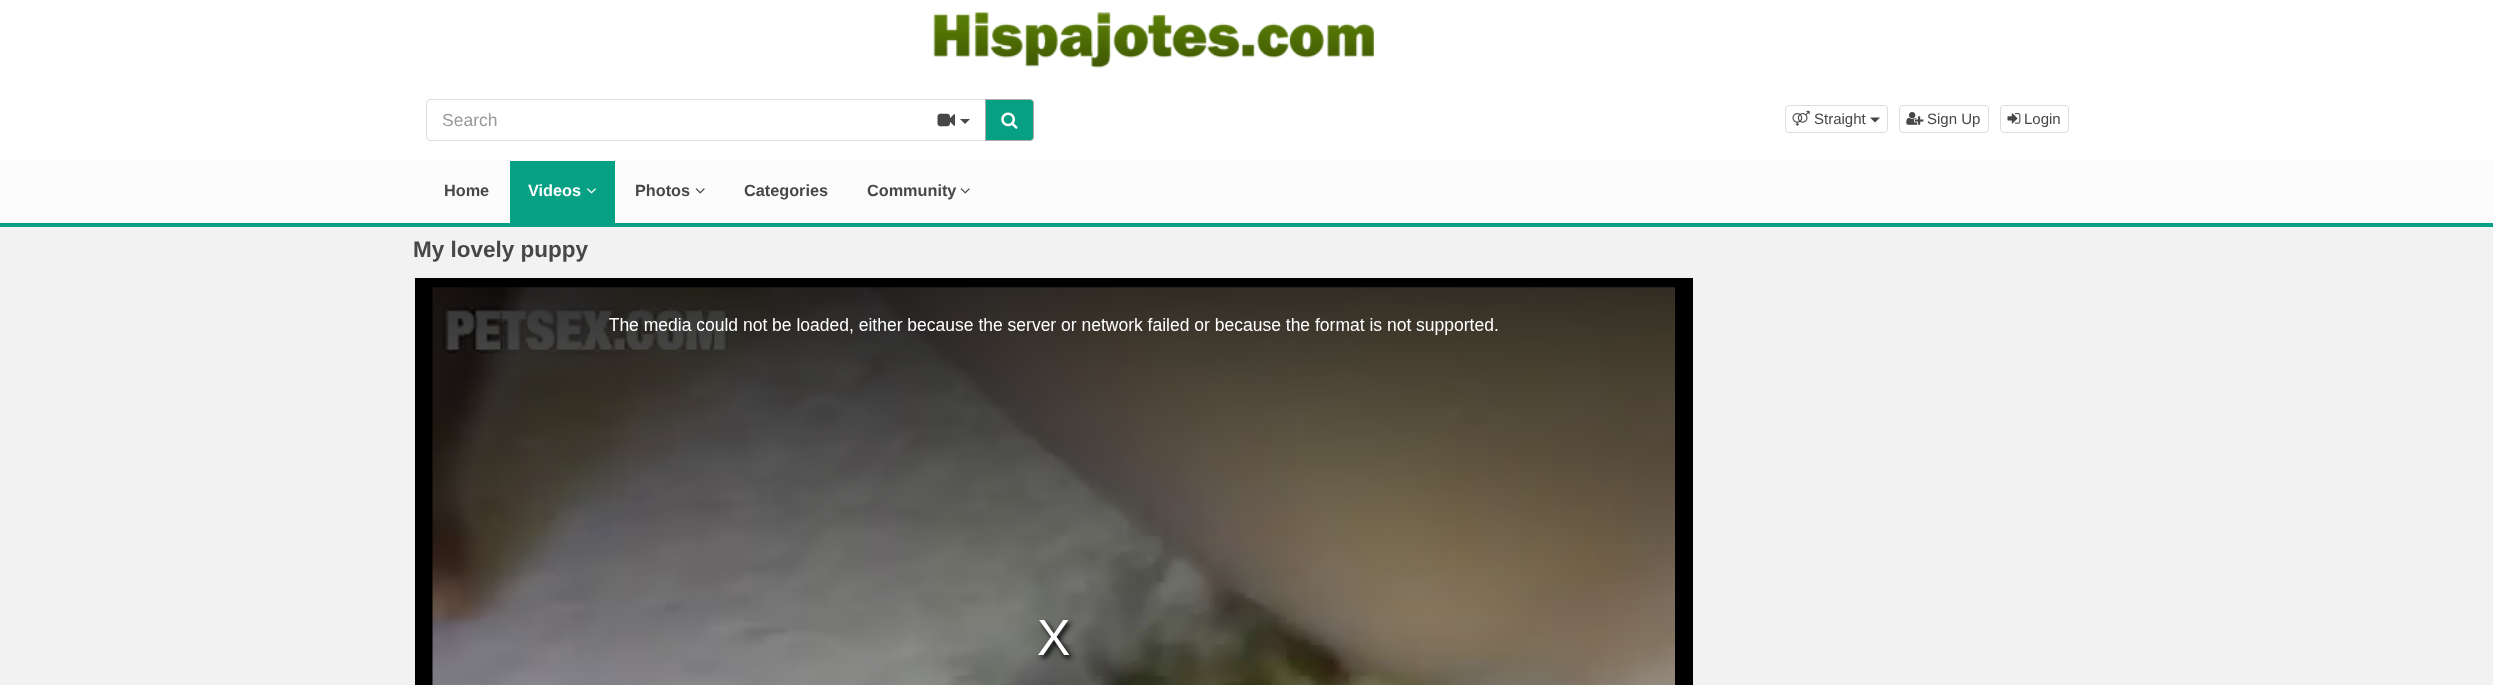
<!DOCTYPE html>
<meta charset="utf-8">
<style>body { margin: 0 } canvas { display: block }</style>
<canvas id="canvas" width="2493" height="685"></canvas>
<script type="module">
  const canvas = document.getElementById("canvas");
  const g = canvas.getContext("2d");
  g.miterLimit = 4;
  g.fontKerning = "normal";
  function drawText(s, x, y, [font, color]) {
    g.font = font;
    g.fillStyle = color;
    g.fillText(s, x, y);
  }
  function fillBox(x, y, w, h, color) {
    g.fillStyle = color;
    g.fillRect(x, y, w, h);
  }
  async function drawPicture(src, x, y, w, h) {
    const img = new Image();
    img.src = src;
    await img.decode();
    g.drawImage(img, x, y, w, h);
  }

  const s1 = ["17.5px Liberation Sans", "#999999"];
  const s2 = ["15px Liberation Sans", "#474747"];
  const s3 = ["bold 16.25px Liberation Sans", "#474747"];
  const s4 = ["bold 16.25px Liberation Sans", "#FFFFFF"];
  const s5 = ["bold 22.5px Liberation Sans", "#474747"];

  fillBox(0, 0, 2493, 685, "#F2F2F2");
  fillBox(0, 0, 2493, 160, "#FFFFFF");
  fillBox(0, 160, 2493, 1, "#F9F9F9");
  await drawPicture("pic1.png", 933, 12, 441, 56);
  g.beginPath();
  g.roundRect(426.5, 99.5, 497, 41, [3.5, 0, 0, 3.5]);
  g.strokeStyle = "#DDDDDD";
  g.stroke();
  drawText("Search", 442, 126, s1);
  fillBox(923, 100, 1, 40, "#FFFFFF");
  fillBox(923, 99, 63, 1, "#DDDDDD");
  fillBox(923, 140, 63, 1, "#DDDDDD");
  await drawPicture("pic2.png", 937, 113, 18, 14);
  g.fillStyle = "#474747";
  g.beginPath();
  g.moveTo(960, 119);
  g.lineTo(970, 119);
  g.lineTo(965, 124);
  g.closePath();
  g.fill();
  g.fillStyle = "#06A085";
  g.beginPath();
  g.roundRect(985.5, 99.5, 48, 41, [0, 3.5, 3.5, 0]);
  g.fill();
  g.strokeStyle = "#AAAAAA";
  g.stroke();
  await drawPicture("pic3.png", 1001, 112, 17, 17);
  g.beginPath();
  g.roundRect(1785.5, 105.5, 102, 27, 3.5);
  g.strokeStyle = "#DDDDDD";
  g.stroke();
  await drawPicture("pic4.png", 1792, 110, 18, 16);
  drawText("Straight", 1814, 124, s2);
  g.beginPath();
  g.moveTo(1870, 117.5);
  g.lineTo(1880, 117.5);
  g.lineTo(1875, 122.5);
  g.closePath();
  g.fill();
  g.beginPath();
  g.roundRect(1899.5, 105.5, 89, 27, 3.5);
  g.stroke();
  await drawPicture("pic5.png", 1906, 112, 18, 13);
  drawText("Sign Up", 1927, 124, s2);
  g.beginPath();
  g.roundRect(2000.5, 105.5, 68, 27, 3.5);
  g.stroke();
  await drawPicture("pic6.png", 2007, 113, 14, 11);
  drawText("Login", 2024, 124, s2);
  fillBox(0, 161, 2493, 62, "#FCFCFC");
  fillBox(0, 223, 2493, 4, "#06A085");
  drawText("Home", 444, 196, s3);
  fillBox(510, 161, 105, 62, "#06A085");
  drawText("Videos", 528, 196, s4);
  await drawPicture("pic7.png", 587, 188, 9, 6);
  drawText("Photos", 635, 196, s3);
  await drawPicture("pic8.png", 695, 188, 10, 6);
  drawText("Categories", 744, 196, s3);
  drawText("Community", 867, 196, s3);
  await drawPicture("pic8.png", 960, 188, 10, 6);
  drawText("My lovely puppy", 413, 257, s5);
  g.strokeStyle = "#EEEEEE";
  g.strokeRect(414.5, 276.5, 1279, 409);
  fillBox(415, 278, 1278, 407, "#000000");
  await drawPicture("pic9.png", 432, 287, 1243, 398);
</script>
